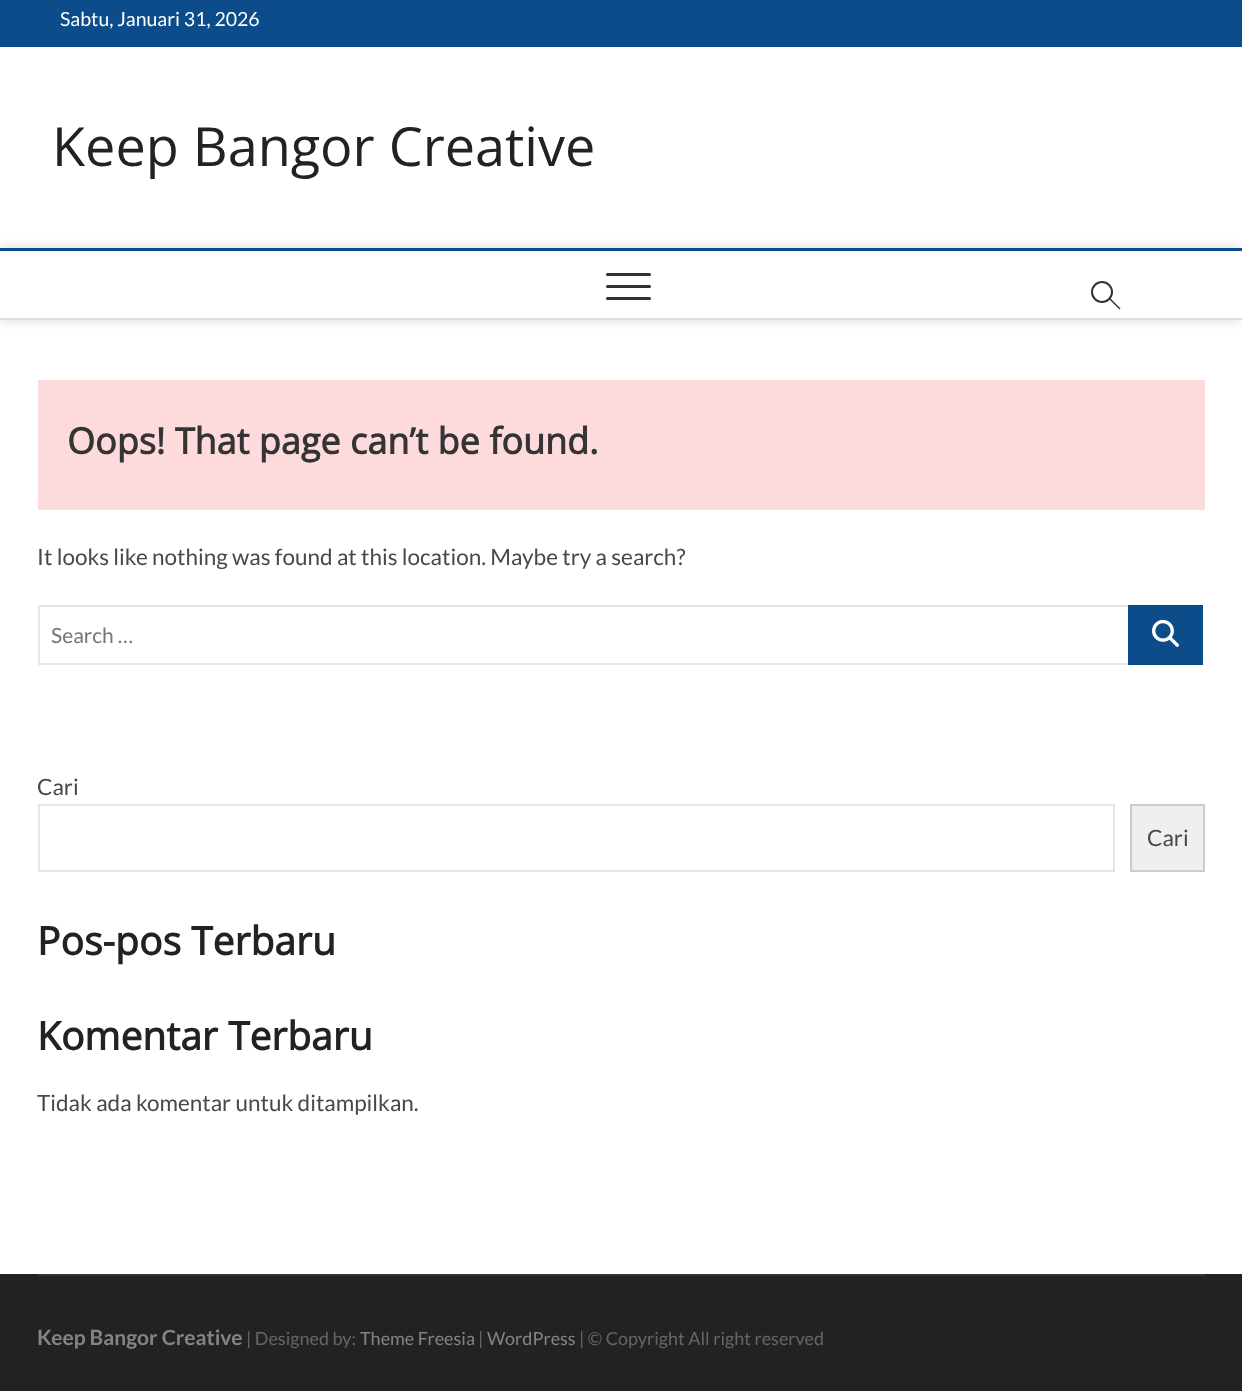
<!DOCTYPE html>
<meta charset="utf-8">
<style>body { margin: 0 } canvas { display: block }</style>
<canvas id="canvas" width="1242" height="1391"></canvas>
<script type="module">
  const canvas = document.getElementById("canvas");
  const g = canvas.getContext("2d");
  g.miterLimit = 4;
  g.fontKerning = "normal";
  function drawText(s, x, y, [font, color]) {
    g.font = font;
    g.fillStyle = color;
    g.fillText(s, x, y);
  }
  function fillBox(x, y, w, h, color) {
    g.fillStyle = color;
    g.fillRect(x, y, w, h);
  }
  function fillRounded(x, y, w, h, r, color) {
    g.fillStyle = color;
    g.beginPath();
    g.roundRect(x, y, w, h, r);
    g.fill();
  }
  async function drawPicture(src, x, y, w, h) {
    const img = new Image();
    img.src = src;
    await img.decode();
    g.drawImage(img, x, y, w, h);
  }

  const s1 = ["19.5px Lato", "#FFFFFF"];
  const s2 = ["54px Open Sans", "#222222"];
  const s3 = ["bold 36px Open Sans", "#343434"];
  const s4 = ["22.5px Lato", "#484848"];
  const s5 = ["21px Lato", "#757575"];
  const s6 = ["bold 39px Open Sans", "#222222"];
  const s7 = ["bold 21px Lato", "#848484"];
  const s8 = ["18px Lato", "#666666"];
  const s9 = ["18px Lato", "#848484"];

  fillBox(0, 0, 1242, 1391, "#FFFFFF");
  fillBox(0, 0, 1242, 47, "#0C4C8A");
  drawText("Sabtu, Januari 31, 2026", 60, 26, s1);
  drawText("Keep Bangor Creative", 52, 166, s2);
  g.fillStyle = "rgba(0, 0, 0, 0.15)";
  g.filter = "blur(6px)";
  g.beginPath();
  g.rect(0, 248, 1242, 72);
  g.fill();
  g.filter = "none";
  fillBox(0, 251, 1242, 67, "#FFFFFF");
  fillBox(0, 248, 1242, 3, "#0C4C8A");
  fillBox(0, 318, 1242, 2, "#DDDDDD");
  fillRounded(606, 285, 45, 3, 1.5, "#333333");
  fillRounded(606, 273, 45, 3, 1.5, "#333333");
  fillRounded(606, 297, 45, 3, 1.5, "#333333");
  g.beginPath();
  g.arc(1102, 292, 10, 0, Math.PI * 2);
  g.strokeStyle = "#333333";
  g.lineWidth = 2;
  g.stroke();
  g.beginPath();
  g.moveTo(1109, 299);
  g.lineTo(1110, 298);
  g.lineTo(1120.5, 308.5);
  g.lineTo(1119.5, 309.5);
  g.closePath();
  g.fill();
  fillBox(38, 380, 1167, 130, "#FDDBDD");
  drawText("Oops! That page can’t be found.", 67, 454, s3);
  drawText("It looks like nothing was found at this location. Maybe try a search?", 37, 565, s4);
  g.strokeStyle = "#E6E6E6";
  g.strokeRect(39, 606, 1090, 58);
  drawText("Search …", 51, 643, s5);
  fillBox(1128, 605, 75, 60, "#0C4C8A");
  await drawPicture("pic1.png", 1152, 619, 27, 28);
  drawText("Cari", 37, 795, s4);
  g.strokeRect(39, 805, 1075, 66);
  g.fillStyle = "#EFEFEF";
  g.beginPath();
  g.rect(1131, 805, 73, 66);
  g.fill();
  g.strokeStyle = "#CCCCCC";
  g.stroke();
  drawText("Cari", 1147, 846, s4);
  drawText("Pos-pos Terbaru", 37, 955, s6);
  drawText("Komentar Terbaru", 37, 1050, s6);
  drawText("Tidak ada komentar untuk ditampilkan.", 37, 1111, s4);
  fillBox(0, 1274, 1242, 117, "#222222");
  fillBox(38, 1274, 1167, 2, "#333333");
  drawText("Keep Bangor Creative", 37, 1345, s7);
  drawText("| Designed by:", 246, 1345, s8);
  drawText("Theme Freesia", 360, 1345, s9);
  drawText("|", 478, 1345, s8);
  drawText("WordPress", 487, 1345, s9);
  drawText("| © Copyright All right reserved", 579, 1345, s8);
</script>
